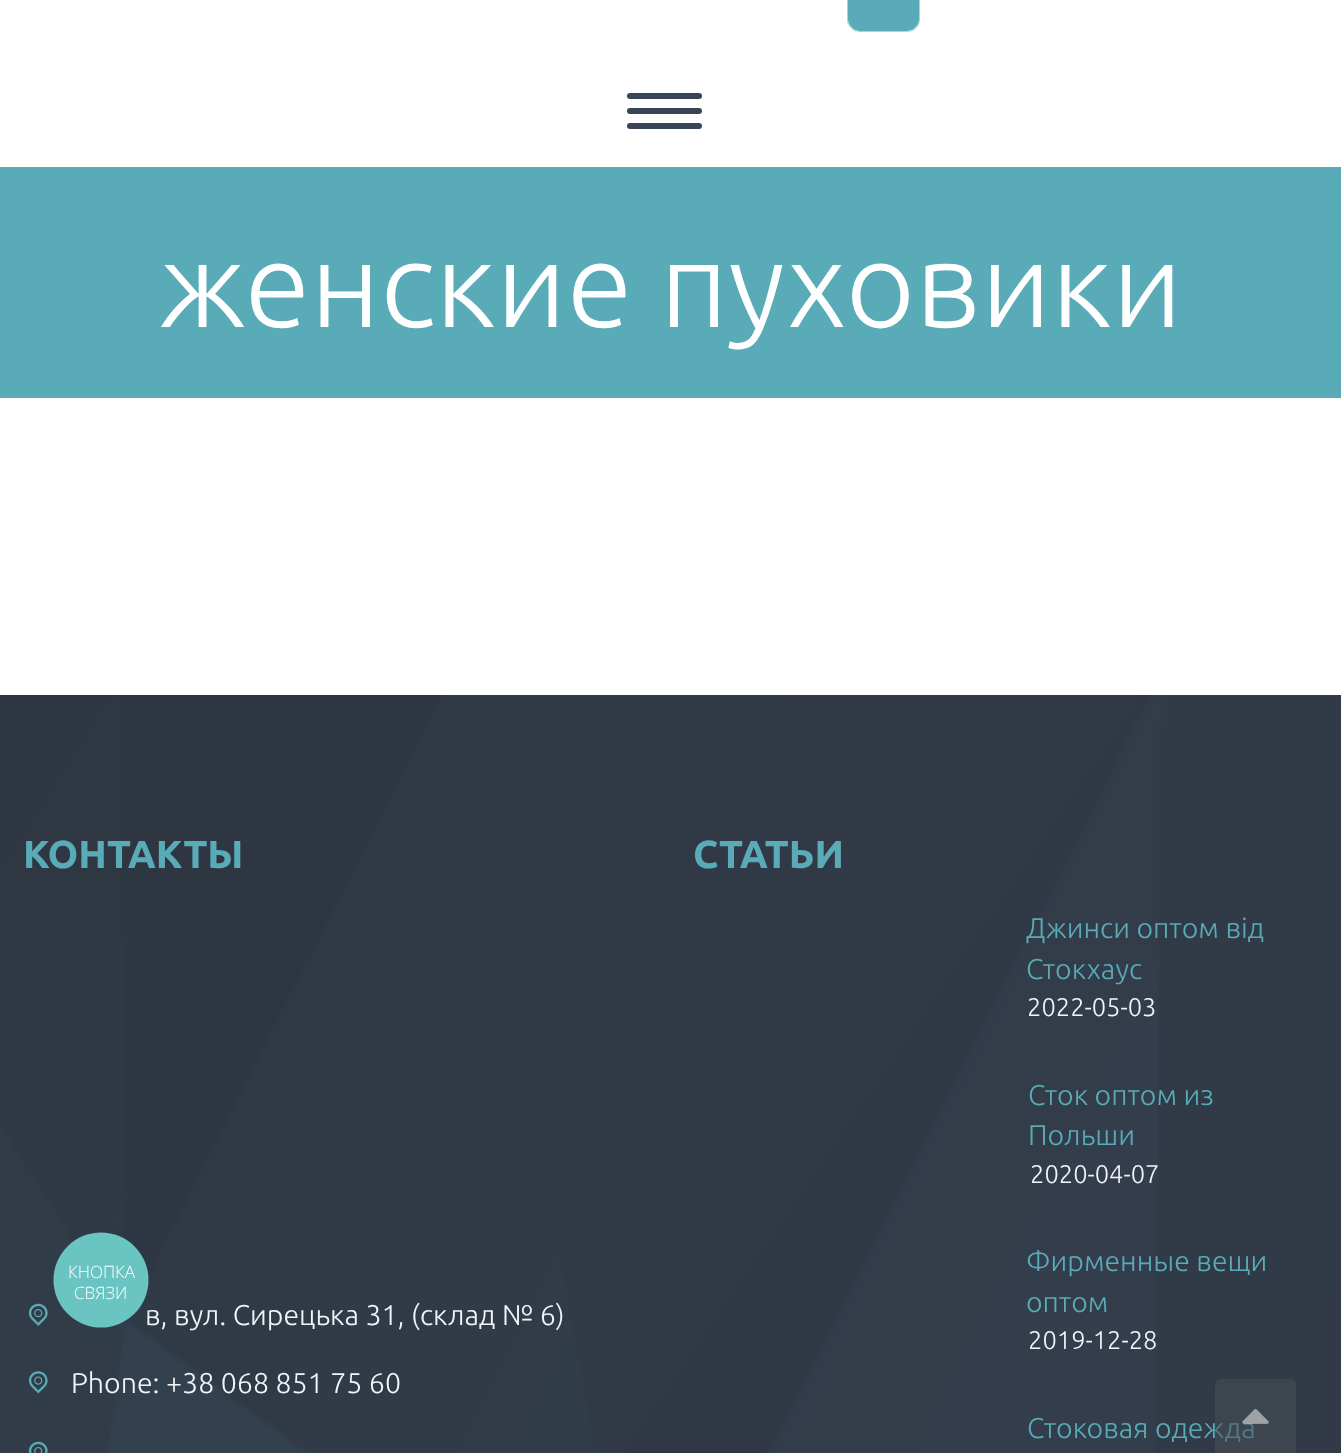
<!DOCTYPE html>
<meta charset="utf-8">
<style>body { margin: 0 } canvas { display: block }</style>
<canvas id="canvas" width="1341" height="1453"></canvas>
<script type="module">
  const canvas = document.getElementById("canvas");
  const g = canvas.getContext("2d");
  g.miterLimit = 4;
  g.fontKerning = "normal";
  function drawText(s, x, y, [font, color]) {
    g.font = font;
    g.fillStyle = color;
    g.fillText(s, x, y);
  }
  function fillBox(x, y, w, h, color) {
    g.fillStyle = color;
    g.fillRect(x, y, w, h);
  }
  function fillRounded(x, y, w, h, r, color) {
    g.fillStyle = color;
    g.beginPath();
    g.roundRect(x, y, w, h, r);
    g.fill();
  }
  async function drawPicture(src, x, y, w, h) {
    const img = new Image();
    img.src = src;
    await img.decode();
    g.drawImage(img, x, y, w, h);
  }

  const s1 = ["300 120px Ubuntu", "#FFFFFF"];
  const s2 = ["bold 39px Ubuntu", "#58ABB7"];
  const s3 = ["300 28.5px Ubuntu", "#F1F5F8"];
  const s4 = ["300 28.5px Ubuntu", "#58ABB7"];
  const s5 = ["300 25.5px Ubuntu", "#F1F5F8"];
  const s6 = ["300 17px Open Sans", "#FFFFFF"];

  fillBox(0, 0, 1341, 1453, "#FFFFFF");
  await drawPicture("pic1.png", 847, 0, 73, 32);
  fillRounded(627, 123, 75, 6, 3, "#384554");
  fillRounded(627, 108, 75, 6, 3, "#384554");
  fillRounded(627, 93, 75, 6, 3, "#384554");
  fillBox(0, 167, 1341, 231, "#58ABB7");
  drawText("женские пуховики", 159, 327, s1);
  await drawPicture("pic2.png", 0, 695, 1341, 758);
  drawText("КОНТАКТЫ", 23, 868, s2);
  await drawPicture("pic3.png", 28, 1303, 20, 23);
  drawText("в, вул. Сирецька 31, (склад № 6)", 145, 1325, s3);
  await drawPicture("pic4.png", 28, 1371, 20, 23);
  drawText("Phone: +38 068 851 75 60", 71, 1393, s3);
  await drawPicture("pic5.png", 28, 1441, 20, 12);
  drawText("СТАТЬИ", 693, 868, s2);
  drawText("Джинси оптом від", 1026, 938, s4);
  drawText("Стокхаус", 1026, 979, s4);
  drawText("2022-05-03", 1027, 1016, s5);
  drawText("Сток оптом из", 1028, 1105, s4);
  drawText("Польши", 1028, 1145, s4);
  drawText("2020-04-07", 1030, 1183, s5);
  drawText("Фирменные вещи", 1026, 1271, s4);
  drawText("оптом", 1026, 1312, s4);
  drawText("2019-12-28", 1028, 1349, s5);
  drawText("Стоковая одежда", 1027, 1438, s4);
  g.fillStyle = "rgba(74, 79, 86, 0.5)";
  g.beginPath();
  g.moveTo(1221, 1379);
  g.lineTo(1290, 1379);
  g.bezierCurveTo(1293.5, 1379, 1296, 1381.5, 1296, 1385);
  g.lineTo(1296, 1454);
  g.lineTo(1215, 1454);
  g.lineTo(1215, 1385);
  g.bezierCurveTo(1215, 1381.5, 1217.5, 1379, 1221, 1379);
  g.closePath();
  g.fill();
  await drawPicture("pic6.png", 1242, 1409, 27, 15);
  g.fillStyle = "rgba(42, 64, 93, 0.06)";
  g.beginPath();
  g.arc(101, 1280, 59.5, 0, Math.PI * 2);
  g.fill();
  g.fillStyle = "#6AC4C1";
  g.beginPath();
  g.arc(101, 1280, 47.5, 0, Math.PI * 2);
  g.fill();
  drawText("КНОПКА", 68, 1278, s6);
  drawText("СВЯЗИ", 74, 1299, s6);
</script>
